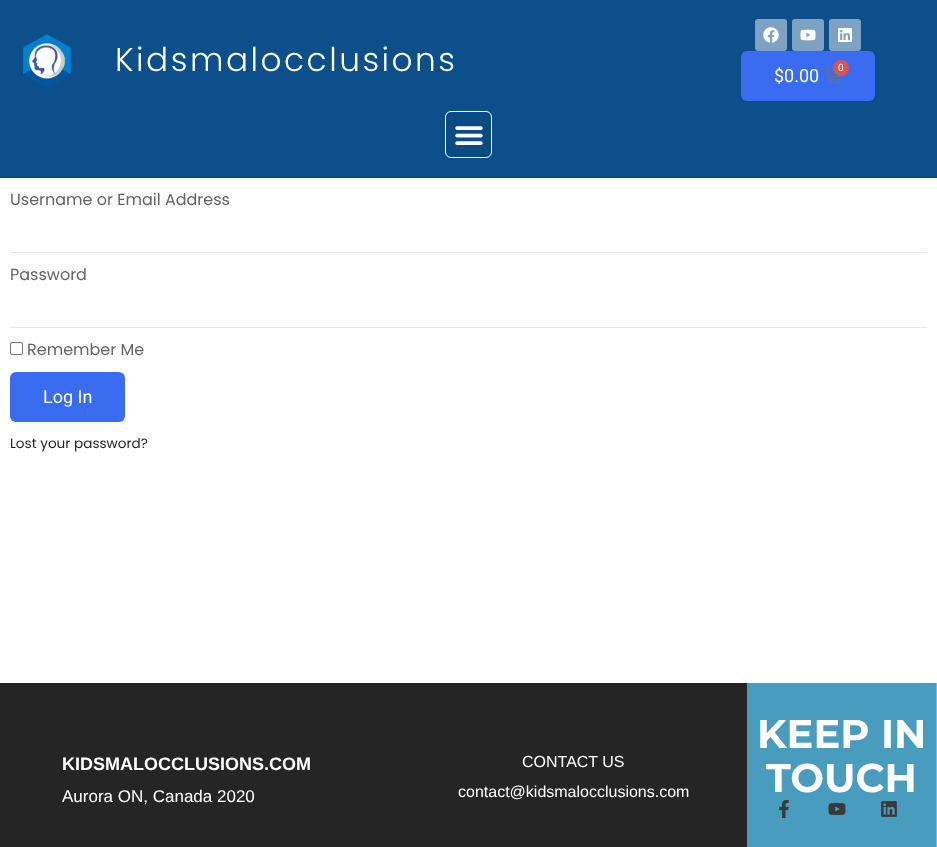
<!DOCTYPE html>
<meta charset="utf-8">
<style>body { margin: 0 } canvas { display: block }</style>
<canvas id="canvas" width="937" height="847"></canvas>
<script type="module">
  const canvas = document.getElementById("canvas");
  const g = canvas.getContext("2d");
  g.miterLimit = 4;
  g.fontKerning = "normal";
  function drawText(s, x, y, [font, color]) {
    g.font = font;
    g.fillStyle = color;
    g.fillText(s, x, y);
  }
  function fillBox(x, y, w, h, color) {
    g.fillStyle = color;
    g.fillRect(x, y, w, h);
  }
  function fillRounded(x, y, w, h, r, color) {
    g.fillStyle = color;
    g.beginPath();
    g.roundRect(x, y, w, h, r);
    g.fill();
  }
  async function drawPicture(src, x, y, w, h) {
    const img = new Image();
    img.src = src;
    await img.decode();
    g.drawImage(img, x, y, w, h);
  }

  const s1 = ["300 32.75px Poppins", "#FFFFFF"];
  const s2 = ["18px Roboto", "#FFFFFF"];
  const s3 = ["10px Roboto", "#FFFFFF"];
  const s4 = ["16px Poppins", "#646464"];
  const s5 = ["13.6px Poppins", "#1E2023"];
  const s6 = ["bold 18px Liberation Sans", "#FFFFFF"];
  const s7 = ["17px Liberation Sans", "#FFFFFF"];
  const s8 = ["16px Liberation Sans", "#FFFFFF"];
  const s9 = ["bold 40px Montserrat", "#FFFFFF"];

  fillBox(0, 0, 937, 847, "#FFFFFF");
  fillBox(0, 0, 937, 178, "#0C4F8B");
  await drawPicture("pic1.png", 22, 34, 50, 53);
  g.letterSpacing = "2.5px";
  drawText("Kidsmalocclusions", 115, 71, s1);
  fillRounded(755, 19, 32, 32, 3, "#7EA2C2");
  await drawPicture("pic2.png", 763, 27, 16, 16);
  fillRounded(792, 19, 32, 32, 3, "#7EA2C2");
  await drawPicture("pic3.png", 800, 29, 16, 12);
  fillRounded(829, 19, 32, 32, 3, "#7EA2C2");
  await drawPicture("pic4.png", 838, 28, 14, 14);
  fillRounded(741, 51, 134, 50, 6, "#396CF0");
  g.letterSpacing = "0px";
  drawText("$0.00", 774, 82, s2);
  await drawPicture("pic5.png", 824, 67, 18, 18);
  g.fillStyle = "#D9534F";
  g.beginPath();
  g.arc(841, 68, 8, 0, Math.PI * 2);
  g.fill();
  drawText("0", 838, 71, s3);
  g.fillStyle = "#0B4B84";
  g.beginPath();
  g.roundRect(445.5, 111.5, 46, 46, 5.5);
  g.fill();
  g.strokeStyle = "#FFFFFF";
  g.stroke();
  await drawPicture("pic6.png", 455, 126, 28, 19);
  drawText("Username or Email Address", 10, 205, s4);
  fillBox(10, 252, 917, 1, "#E5E9EA");
  drawText("Password", 10, 280, s4);
  fillBox(10, 327, 917, 1, "#E5E9EA");
  g.beginPath();
  g.roundRect(10.5, 342.5, 12, 12, 1.5);
  g.strokeStyle = "#767676";
  g.stroke();
  drawText("Remember Me", 27, 355, s4);
  fillRounded(10, 372, 115, 50, 6, "#396CF0");
  drawText("Log In", 43, 403, s2);
  drawText("Lost your password?", 10, 448, s5);
  fillBox(936, 683, 1, 164, "#6EC1E4");
  fillBox(0, 683, 747, 164, "#252525");
  drawText("KIDSMALOCCLUSIONS.COM", 62, 770, s6);
  drawText("Aurora ON, Canada 2020", 62, 802, s7);
  drawText("CONTACT US", 522, 767, s8);
  drawText("contact@kidsmalocclusions.com", 458, 797, s8);
  fillBox(747, 683, 189, 164, "#489CBE");
  drawText("KEEP IN", 757, 748, s9);
  drawText("TOUCH", 766, 792, s9);
  await drawPicture("pic7.png", 779, 800, 10, 18);
  await drawPicture("pic8.png", 828, 803, 18, 12);
  await drawPicture("pic9.png", 881, 801, 16, 16);
</script>
